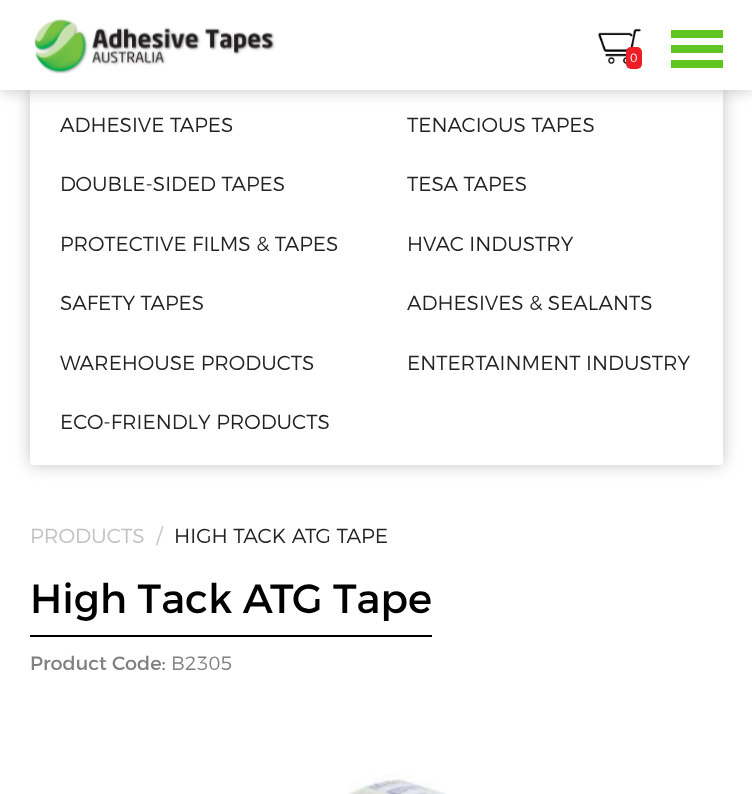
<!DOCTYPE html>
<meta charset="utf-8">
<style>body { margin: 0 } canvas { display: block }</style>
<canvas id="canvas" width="752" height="794"></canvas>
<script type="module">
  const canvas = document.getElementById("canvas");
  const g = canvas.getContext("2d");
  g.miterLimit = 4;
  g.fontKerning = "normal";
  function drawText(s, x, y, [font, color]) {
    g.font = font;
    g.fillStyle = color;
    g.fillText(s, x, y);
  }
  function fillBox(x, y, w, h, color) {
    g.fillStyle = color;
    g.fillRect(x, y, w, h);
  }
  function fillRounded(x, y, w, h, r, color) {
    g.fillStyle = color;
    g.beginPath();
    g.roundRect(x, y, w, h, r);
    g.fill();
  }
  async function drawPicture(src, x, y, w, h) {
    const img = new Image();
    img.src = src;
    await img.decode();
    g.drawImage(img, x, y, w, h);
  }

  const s1 = ["300 12px Montserrat", "#FFFFFF"];
  const s2 = ["300 20.2px Montserrat", "#232323"];
  const s3 = ["300 20.4px Montserrat", "#C2C2C2"];
  const s4 = ["300 20.4px Montserrat", "#232323"];
  const s5 = ["40.75px Montserrat", "#000000"];
  const s6 = ["19.25px Montserrat", "#808080"];
  const s7 = ["300 19.25px Montserrat", "#808080"];

  fillBox(0, 0, 752, 794, "#FFFFFF");
  g.fillStyle = "#C2C2C2";
  g.filter = "blur(8px)";
  g.beginPath();
  g.roundRect(30, 0, 693, 465, 3);
  g.fill();
  g.filter = "none";
  g.fillStyle = "#FFFFFF";
  g.beginPath();
  g.roundRect(30, 0, 693, 465, [0, 0, 3, 3]);
  g.fill();
  g.fillStyle = "#C2C2C2";
  g.filter = "blur(8px)";
  g.beginPath();
  g.rect(0, 0, 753, 90);
  g.fill();
  g.filter = "none";
  fillBox(0, 0, 752, 90, "#FFFFFF");
  await drawPicture("pic1.png", 34, 19, 241, 55);
  await drawPicture("pic2.png", 598, 28, 43, 37);
  fillRounded(626, 47, 16, 22, 5, "#ED1D25");
  drawText("0", 630, 62, s1);
  fillBox(671, 30, 52, 8, "#60C421");
  fillBox(671, 45, 52, 8, "#60C421");
  fillBox(671, 60, 52, 8, "#60C421");
  drawText("ADHESIVE TAPES", 60, 132, s2);
  drawText("TENACIOUS TAPES", 407, 132, s2);
  drawText("DOUBLE-SIDED TAPES", 60, 191, s2);
  drawText("TESA TAPES", 407, 191, s2);
  drawText("PROTECTIVE FILMS & TAPES", 60, 251, s2);
  drawText("HVAC INDUSTRY", 407, 251, s2);
  drawText("SAFETY TAPES", 60, 310, s2);
  drawText("ADHESIVES & SEALANTS", 407, 310, s2);
  drawText("WAREHOUSE PRODUCTS", 60, 370, s2);
  drawText("ENTERTAINMENT INDUSTRY", 407, 370, s2);
  drawText("ECO-FRIENDLY PRODUCTS", 60, 429, s2);
  drawText("PRODUCTS", 30, 543, s3);
  drawText("/", 156, 543, s3);
  drawText("HIGH TACK ATG TAPE", 174, 543, s4);
  fillBox(30, 635, 402, 2, "#000000");
  drawText("High Tack ATG Tape", 30, 613, s5);
  drawText("Product Code:", 30, 670, s6);
  drawText("B2305", 171, 670, s7);
  await drawPicture("pic3.png", 348, 774, 99, 20);
</script>
